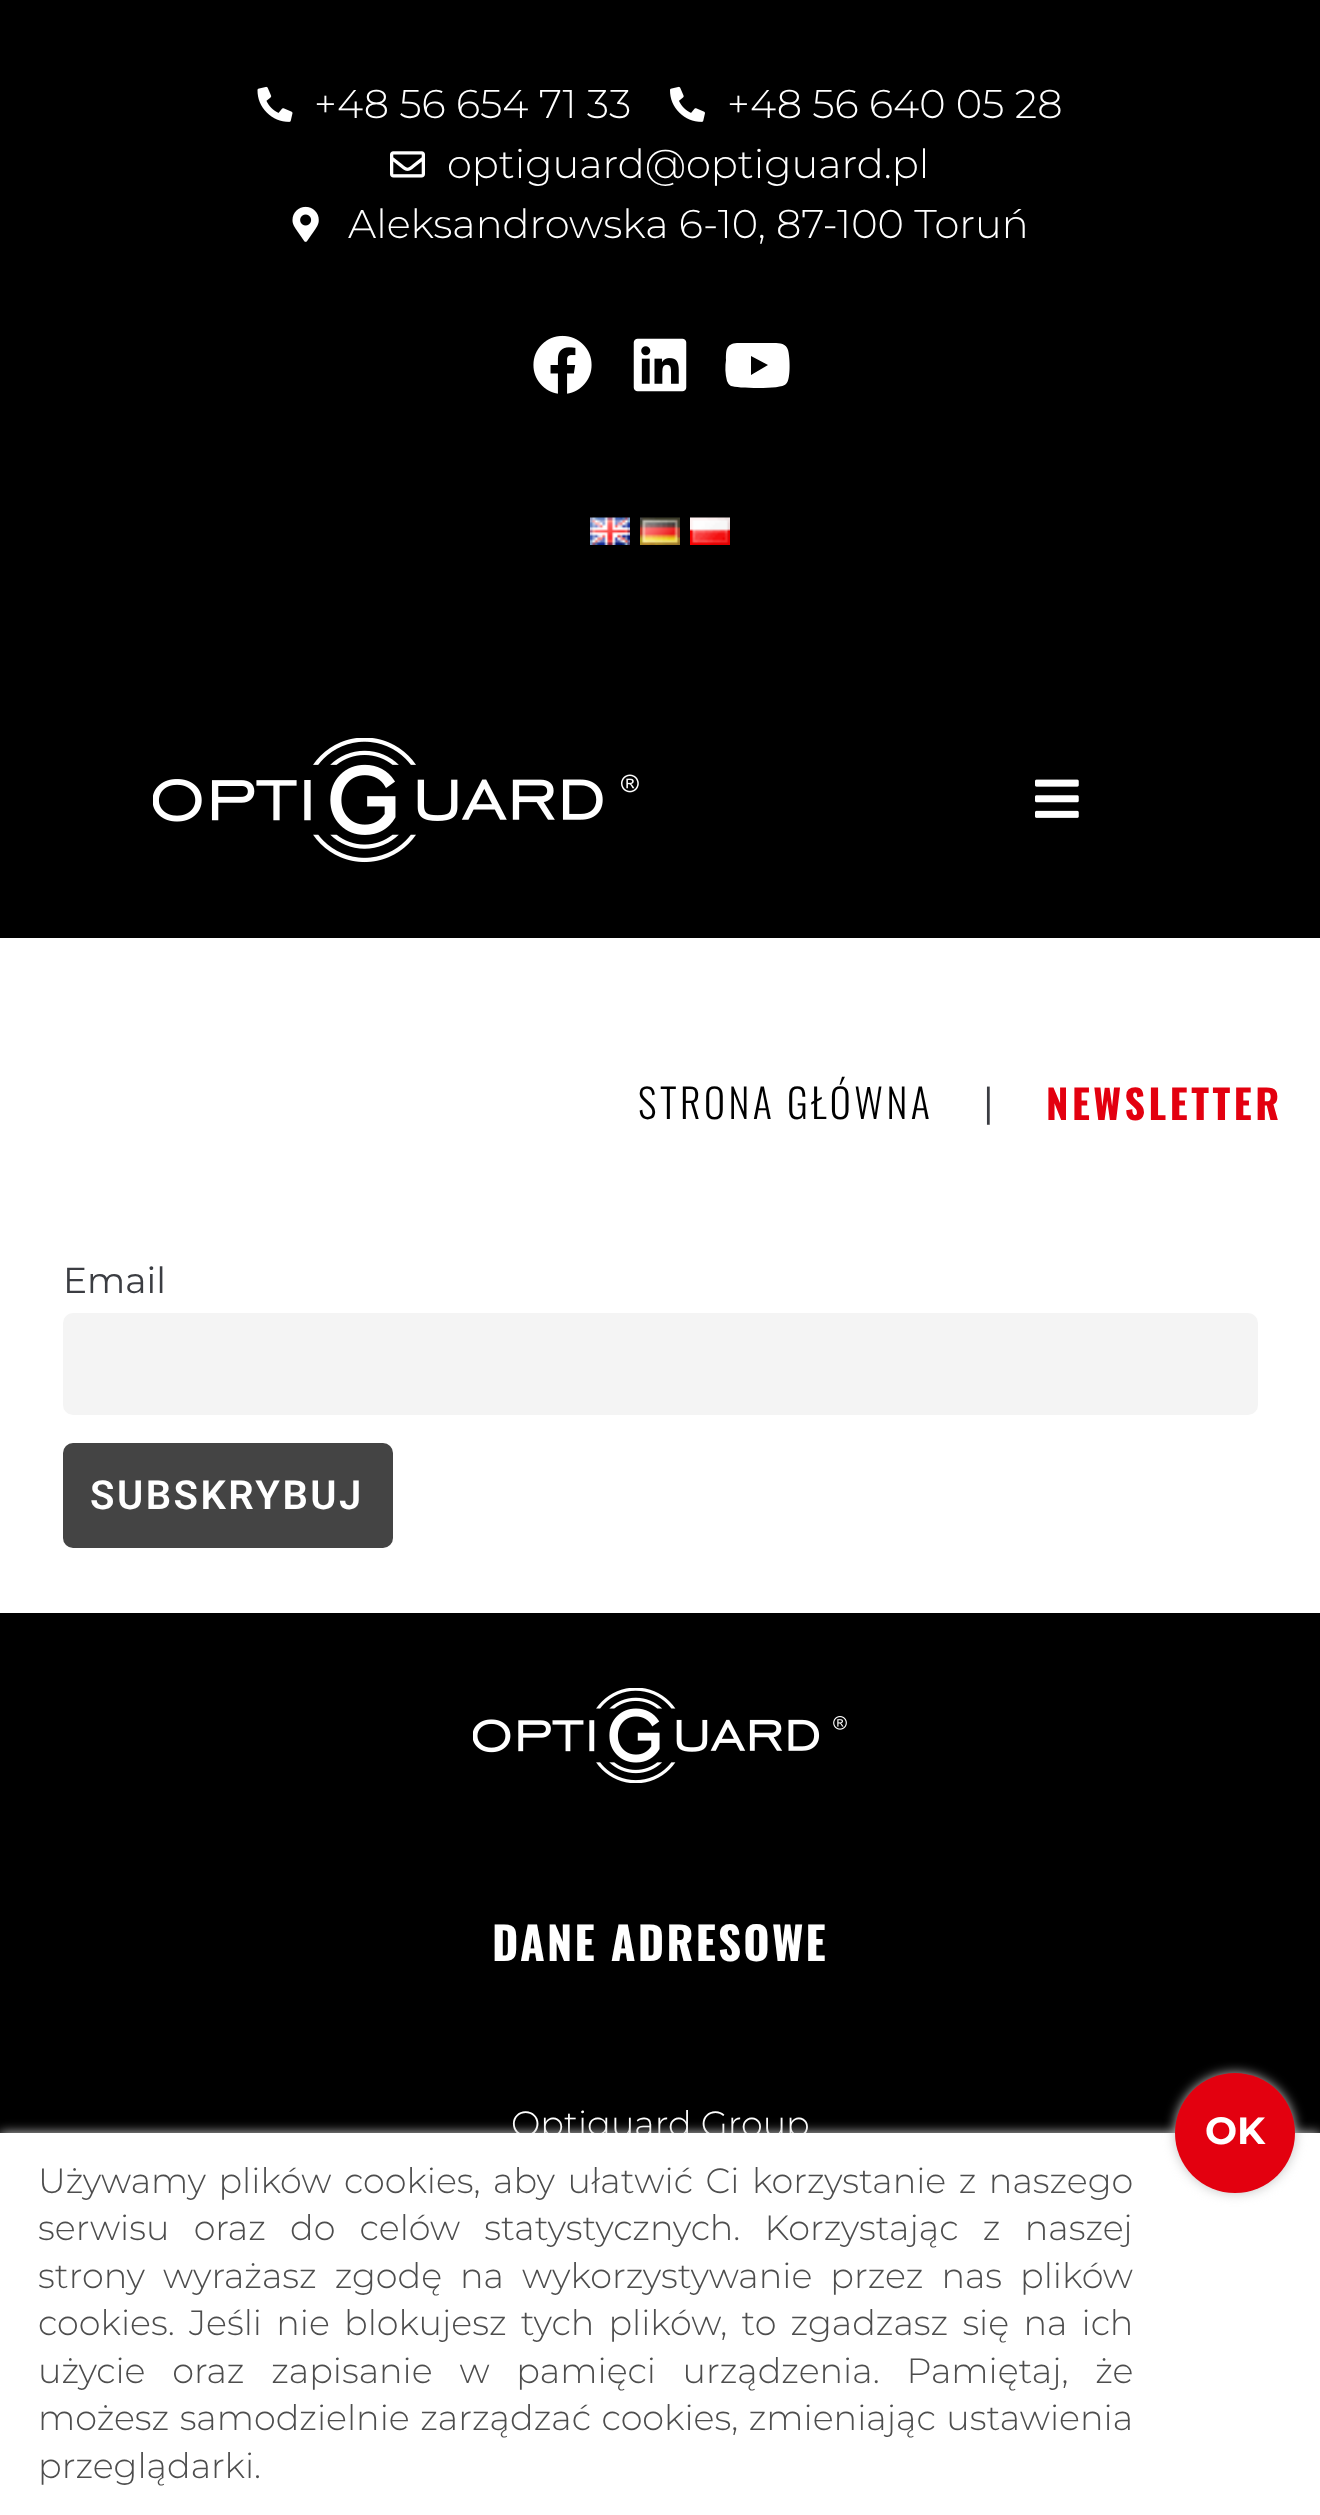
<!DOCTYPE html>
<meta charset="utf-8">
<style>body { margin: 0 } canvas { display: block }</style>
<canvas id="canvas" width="1320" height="2515"></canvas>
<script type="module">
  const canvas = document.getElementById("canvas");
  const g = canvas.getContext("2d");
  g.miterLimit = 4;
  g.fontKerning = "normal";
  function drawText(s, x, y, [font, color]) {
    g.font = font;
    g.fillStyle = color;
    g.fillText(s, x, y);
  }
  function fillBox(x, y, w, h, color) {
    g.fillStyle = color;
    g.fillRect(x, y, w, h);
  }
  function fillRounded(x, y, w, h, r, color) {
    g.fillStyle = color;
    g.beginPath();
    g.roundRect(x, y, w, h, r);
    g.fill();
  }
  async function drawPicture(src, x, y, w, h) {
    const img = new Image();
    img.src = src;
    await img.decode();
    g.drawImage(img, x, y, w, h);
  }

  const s1 = ["300 40px Montserrat", "#FFFFFF"];
  const s2 = ["300 40px Oswald", "#000000"];
  const s3 = ["300 40px Oswald", "#3B3D42"];
  const s4 = ["bold 40px Oswald", "#E3000F"];
  const s5 = ["36px Montserrat", "#3B3D42"];
  const s6 = ["600 40px Roboto", "#FFFFFF"];
  const s7 = ["bold 45px Oswald", "#FFFFFF"];
  const s8 = ["300 35px Montserrat", "#FFFFFF"];
  const s9 = ["bold 38px Montserrat", "#FFFFFF"];
  const s10 = ["300 35px Montserrat", "#4D4D4D"];

  fillBox(0, 0, 1320, 2515, "#FFFFFF");
  fillBox(0, 0, 1320, 938, "#000000");
  await drawPicture("pic1.png", 257, 86, 36, 36);
  drawText("+48 56 654 71 33", 314, 118, s1);
  await drawPicture("pic2.png", 670, 86, 35, 36);
  drawText("+48 56 640 05 28", 727, 118, s1);
  await drawPicture("pic3.png", 390, 151, 35, 27);
  drawText("optiguard@optiguard.pl", 447, 178, s1);
  await drawPicture("pic4.png", 292, 206, 27, 36);
  drawText("Aleksandrowska 6-10, 87-100 Toruń", 348, 238, s1);
  await drawPicture("pic5.png", 533, 335, 59, 59);
  await drawPicture("pic6.png", 633, 338, 54, 54);
  g.beginPath();
  g.moveTo(788, 350);
  g.bezierCurveTo(790, 357, 791, 380, 786, 384);
  g.bezierCurveTo(781, 390, 736, 388, 731, 386);
  g.bezierCurveTo(729, 385, 728, 383, 727, 381);
  g.bezierCurveTo(725, 374, 725, 366, 726, 360);
  g.bezierCurveTo(726, 350, 726, 344, 737, 343);
  g.lineTo(751, 343);
  g.lineTo(770, 343);
  g.bezierCurveTo(776, 343, 786, 342, 788, 350);
  g.closePath();
  g.moveTo(751, 375);
  g.lineTo(768, 365);
  g.lineTo(751, 356);
  g.closePath();
  g.fill();
  await drawPicture("pic7.png", 590, 517, 40, 28);
  await drawPicture("pic8.png", 640, 517, 40, 28);
  await drawPicture("pic9.png", 690, 517, 40, 28);
  await drawPicture("pic10.png", 153, 738, 486, 125);
  await drawPicture("pic11.png", 1035, 779, 44, 39);
  g.letterSpacing = "3.5px";
  drawText("STRONA GŁÓWNA", 638, 1119, s2);
  drawText("|", 984, 1119, s3);
  drawText("NEWSLETTER", 1046, 1120, s4);
  g.letterSpacing = "0px";
  drawText("Email", 63, 1293, s5);
  fillRounded(63, 1313, 1195, 102, 10, "#F4F4F4");
  fillRounded(63, 1443, 330, 105, 10, "#444444");
  g.letterSpacing = "2.5px";
  drawText("SUBSKRYBUJ", 90, 1509, s6);
  fillBox(0, 1613, 1320, 520, "#000000");
  await drawPicture("pic12.png", 473, 1688, 374, 95);
  g.letterSpacing = "2.25px";
  drawText("DANE ADRESOWE", 492, 1961, s7);
  g.letterSpacing = "0px";
  drawText("Optiguard Group", 511, 2136, s8);
  g.fillStyle = "#D4D4D4";
  g.filter = "blur(6px)";
  g.beginPath();
  g.rect(0, 2133, 1320, 382);
  g.fill();
  g.filter = "none";
  fillBox(0, 2133, 1320, 382, "#FFFFFF");
  g.fillStyle = "#C0C0C0";
  g.filter = "blur(6px)";
  g.beginPath();
  g.roundRect(1175, 2073, 120, 120, 60);
  g.fill();
  g.filter = "none";
  g.fillStyle = "#E3000F";
  g.beginPath();
  g.arc(1235, 2133, 60, 0, Math.PI * 2);
  g.fill();
  drawText("OK", 1205, 2144, s9);
  g.wordSpacing = "3.5px";
  drawText("Używamy plików cookies, aby ułatwić Ci korzystanie z naszego", 38, 2193, s10);
  g.wordSpacing = "15.25px";
  drawText("serwisu oraz do celów statystycznych. Korzystając z naszej", 38, 2240, s10);
  g.wordSpacing = "9px";
  drawText("strony wyrażasz zgodę na wykorzystywanie przez nas plików", 38, 2288, s10);
  g.wordSpacing = "5.25px";
  drawText("cookies. Jeśli nie blokujesz tych plików, to zgadzasz się na ich", 38, 2335, s10);
  g.wordSpacing = "17.75px";
  drawText("użycie oraz zapisanie w pamięci urządzenia. Pamiętaj, że", 38, 2383, s10);
  g.wordSpacing = "1.5px";
  drawText("możesz samodzielnie zarządzać cookies, zmieniając ustawienia", 38, 2430, s10);
  g.wordSpacing = "0px";
  drawText("przeglądarki.", 38, 2478, s10);
</script>
